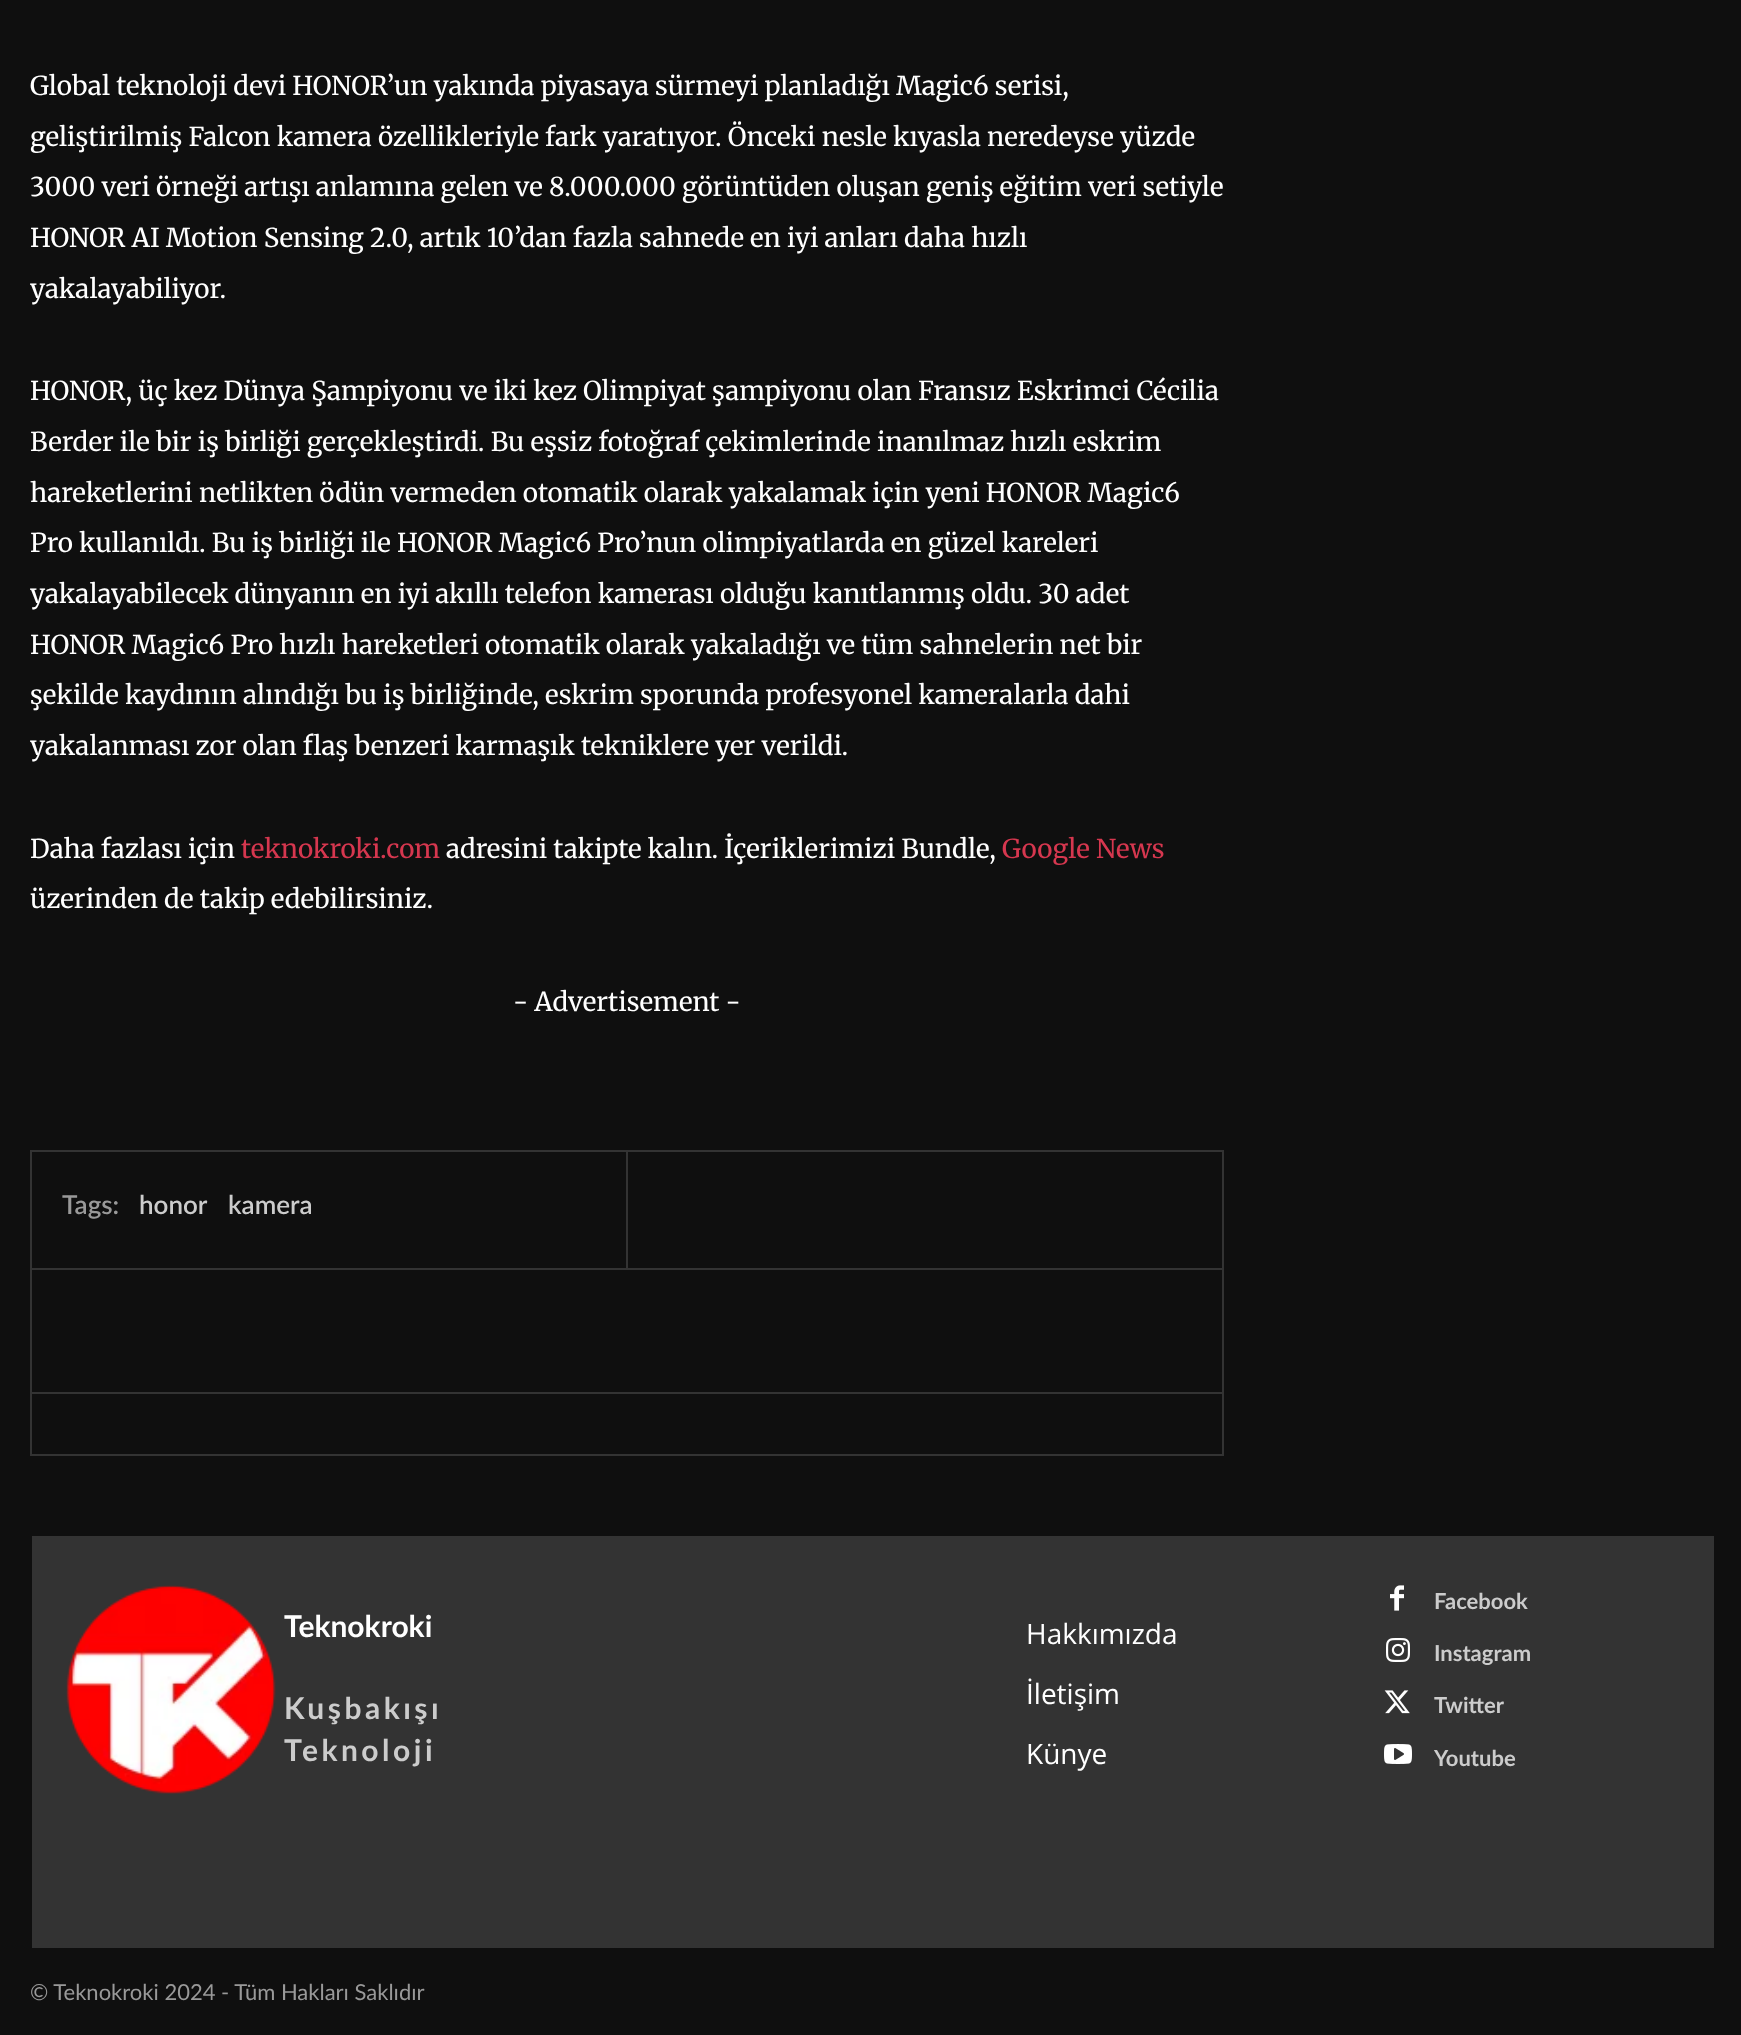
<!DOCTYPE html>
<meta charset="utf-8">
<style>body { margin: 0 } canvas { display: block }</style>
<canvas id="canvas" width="1741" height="2035"></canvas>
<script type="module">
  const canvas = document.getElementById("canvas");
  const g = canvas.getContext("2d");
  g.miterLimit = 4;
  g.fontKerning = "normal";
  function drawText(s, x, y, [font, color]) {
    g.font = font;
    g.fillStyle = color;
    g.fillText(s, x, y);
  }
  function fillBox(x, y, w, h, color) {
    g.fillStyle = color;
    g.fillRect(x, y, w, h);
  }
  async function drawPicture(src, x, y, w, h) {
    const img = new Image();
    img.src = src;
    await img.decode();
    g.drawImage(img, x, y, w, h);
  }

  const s1 = ["26px Merriweather", "#FFFFFF"];
  const s2 = ["26px Merriweather", "#D6374F"];
  const s3 = ["600 26px Lato", "#999999"];
  const s4 = ["600 26px Lato", "#CCCCCC"];
  const s5 = ["bold 30px Lato", "#FFFFFF"];
  const s6 = ["bold 30px Lato", "#CCCCCC"];
  const s7 = ["28px Open Sans", "#FFFFFF"];
  const s8 = ["bold 22px Lato", "#CCCCCC"];
  const s9 = ["22px Lato", "#999999"];

  fillBox(0, 0, 1741, 2035, "#0F0F0F");
  drawText("Global teknoloji devi HONOR’un yakında piyasaya sürmeyi planladığı Magic6 serisi,", 30, 95, s1);
  drawText("geliştirilmiş Falcon kamera özellikleriyle fark yaratıyor. Önceki nesle kıyasla neredeyse yüzde", 30, 146, s1);
  drawText("3000 veri örneği artışı anlamına gelen ve 8.000.000 görüntüden oluşan geniş eğitim veri setiyle", 30, 196, s1);
  drawText("HONOR AI Motion Sensing 2.0, artık 10’dan fazla sahnede en iyi anları daha hızlı", 30, 247, s1);
  drawText("yakalayabiliyor.", 30, 298, s1);
  drawText("HONOR, üç kez Dünya Şampiyonu ve iki kez Olimpiyat şampiyonu olan Fransız Eskrimci Cécilia", 30, 400, s1);
  drawText("Berder ile bir iş birliği gerçekleştirdi. Bu eşsiz fotoğraf çekimlerinde inanılmaz hızlı eskrim", 30, 451, s1);
  drawText("hareketlerini netlikten ödün vermeden otomatik olarak yakalamak için yeni HONOR Magic6", 30, 502, s1);
  drawText("Pro kullanıldı. Bu iş birliği ile HONOR Magic6 Pro’nun olimpiyatlarda en güzel kareleri", 30, 552, s1);
  drawText("yakalayabilecek dünyanın en iyi akıllı telefon kamerası olduğu kanıtlanmış oldu. 30 adet", 30, 603, s1);
  drawText("HONOR Magic6 Pro hızlı hareketleri otomatik olarak yakaladığı ve tüm sahnelerin net bir", 30, 654, s1);
  drawText("şekilde kaydının alındığı bu iş birliğinde, eskrim sporunda profesyonel kameralarla dahi", 30, 704, s1);
  drawText("yakalanması zor olan flaş benzeri karmaşık tekniklere yer verildi.", 30, 755, s1);
  drawText("Daha fazlası için", 30, 858, s1);
  drawText("teknokroki.com", 241, 858, s2);
  drawText("adresini takipte kalın. İçeriklerimizi Bundle,", 446, 858, s1);
  drawText("Google News", 1002, 858, s2);
  drawText("üzerinden de takip edebilirsiniz.", 30, 908, s1);
  drawText("- Advertisement -", 513, 1011, s1);
  g.strokeStyle = "#333333";
  g.lineWidth = 2;
  g.strokeRect(31, 1151, 1192, 242);
  fillBox(626, 1152, 2, 116, "#333333");
  drawText("Tags:", 62, 1214, s3);
  drawText("honor", 139, 1214, s4);
  drawText("kamera", 228, 1214, s4);
  fillBox(32, 1268, 1190, 2, "#333333");
  fillBox(1222, 1394, 2, 62, "#333333");
  fillBox(30, 1454, 1194, 2, "#333333");
  fillBox(30, 1394, 2, 62, "#333333");
  fillBox(32, 1536, 1682, 412, "#333333");
  await drawPicture("pic1.png", 66, 1585, 210, 209);
  drawText("Teknokroki", 284, 1637, s5);
  g.letterSpacing = "3.5px";
  drawText("Kuşbakışı", 284, 1719, s6);
  drawText("Teknoloji", 284, 1761, s6);
  g.letterSpacing = "0px";
  drawText("Hakkımızda", 1026, 1644, s7);
  drawText("İletişim", 1026, 1704, s7);
  drawText("Künye", 1026, 1764, s7);
  await drawPicture("pic2.png", 1390, 1585, 14, 26);
  drawText("Facebook", 1434, 1609, s8);
  await drawPicture("pic3.png", 1386, 1638, 24, 24);
  drawText("Instagram", 1434, 1661, s8);
  await drawPicture("pic4.png", 1384, 1690, 26, 24);
  drawText("Twitter", 1434, 1713, s8);
  await drawPicture("pic5.png", 1384, 1744, 28, 20);
  drawText("Youtube", 1434, 1766, s8);
  drawText("© Teknokroki 2024 - Tüm Hakları Saklıdır", 30, 2000, s9);
</script>
